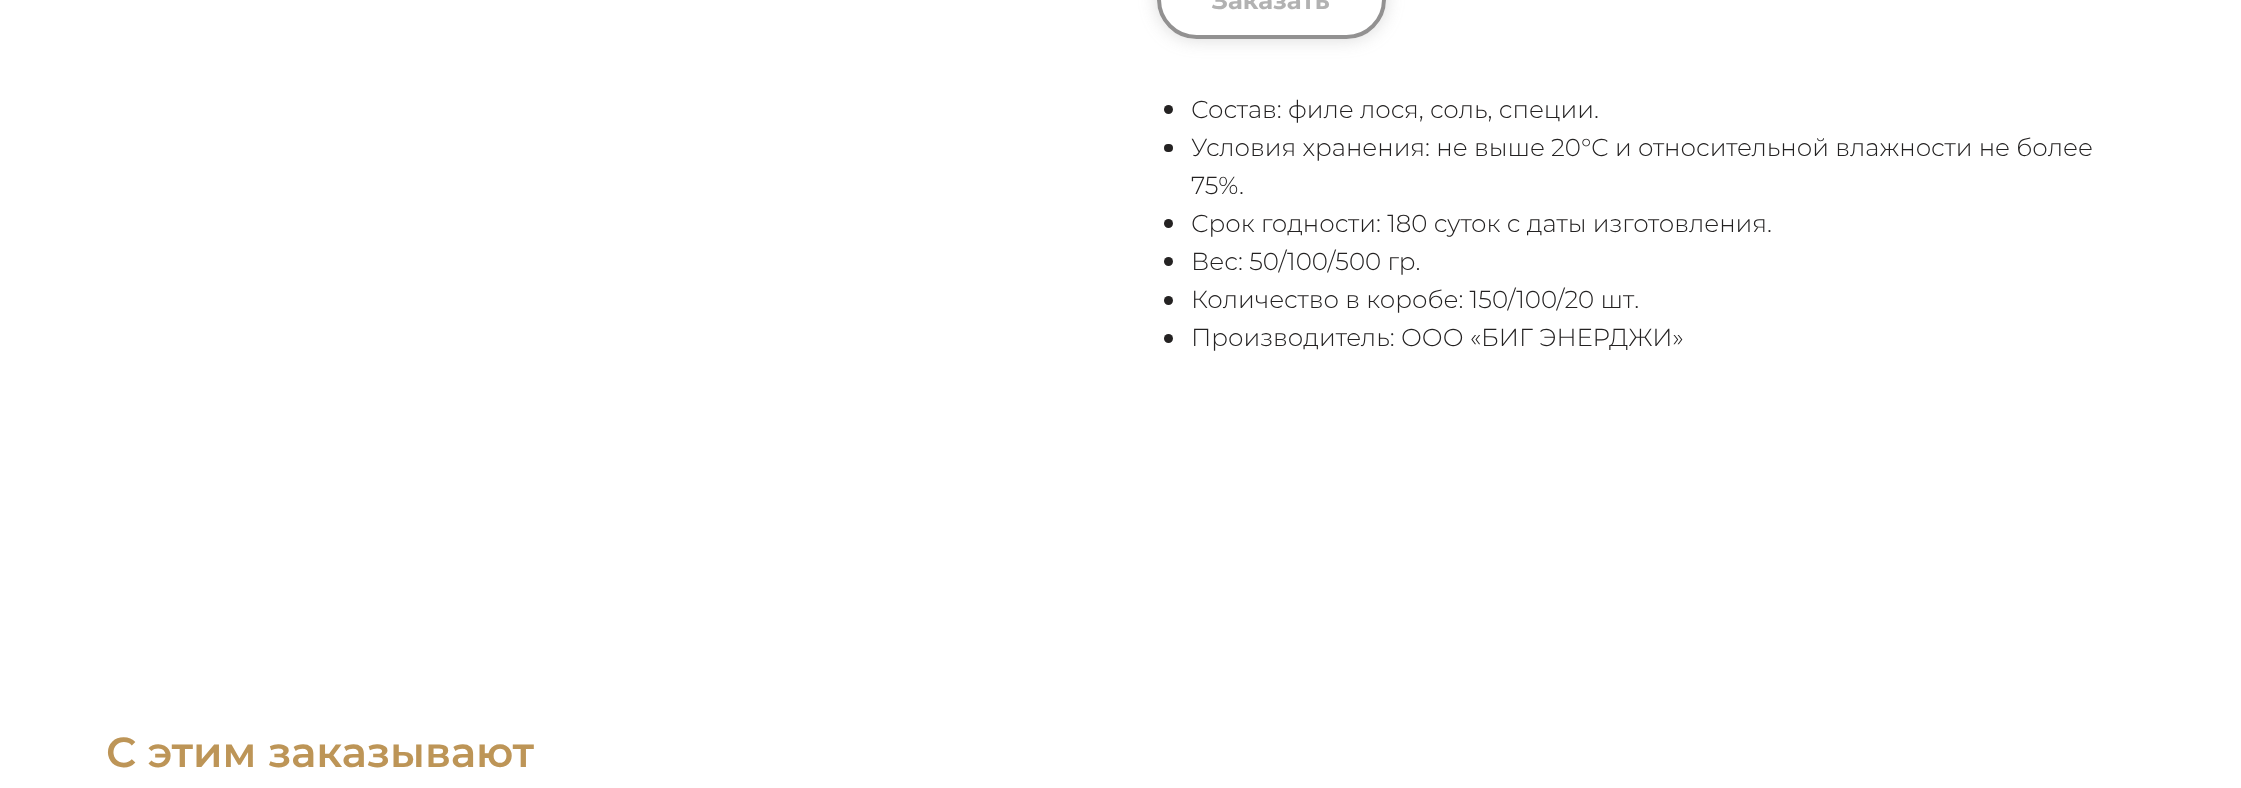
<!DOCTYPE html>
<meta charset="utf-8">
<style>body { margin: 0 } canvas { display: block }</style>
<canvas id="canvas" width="2241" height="788"></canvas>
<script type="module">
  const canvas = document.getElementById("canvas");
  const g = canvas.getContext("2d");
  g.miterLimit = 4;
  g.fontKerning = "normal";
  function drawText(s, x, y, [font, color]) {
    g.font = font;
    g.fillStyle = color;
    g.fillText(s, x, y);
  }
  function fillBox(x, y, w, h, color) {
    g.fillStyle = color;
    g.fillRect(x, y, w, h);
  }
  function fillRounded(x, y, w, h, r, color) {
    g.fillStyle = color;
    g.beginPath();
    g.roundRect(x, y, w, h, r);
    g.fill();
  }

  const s1 = ["bold 24.5px Montserrat", "#B2B2B2"];
  const s2 = ["300 24.5px Montserrat", "#242222"];
  const s3 = ["600 42px Montserrat", "#BD9557"];

  fillBox(0, 0, 2241, 788, "#FFFFFF");
  g.save();
  g.beginPath();
  g.moveTo(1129, 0);
  g.lineTo(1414, 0);
  g.lineTo(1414, 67);
  g.lineTo(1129, 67);
  g.closePath();
  g.moveTo(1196.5, -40);
  g.lineTo(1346.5, -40);
  g.bezierCurveTo(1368.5, -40, 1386, -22.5, 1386, -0.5);
  g.bezierCurveTo(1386, 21.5, 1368.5, 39, 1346.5, 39);
  g.lineTo(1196.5, 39);
  g.bezierCurveTo(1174.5, 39, 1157, 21.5, 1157, -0.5);
  g.bezierCurveTo(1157, -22.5, 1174.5, -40, 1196.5, -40);
  g.closePath();
  g.clip("evenodd");
  g.fillStyle = "rgba(128, 128, 128, 0.3)";
  g.filter = "blur(9px)";
  g.beginPath();
  g.roundRect(1157, -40, 229, 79, 39.5);
  g.fill();
  g.filter = "none";
  g.restore();
  g.beginPath();
  g.roundRect(1159, -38, 225, 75, 37.5);
  g.strokeStyle = "#929191";
  g.lineWidth = 4;
  g.stroke();
  drawText("Заказать", 1212, 9, s1);
  g.fillStyle = "#242222";
  g.beginPath();
  g.arc(1168.5, 109.5, 4.5, 0, Math.PI * 2);
  g.fill();
  drawText("Состав: филе лося, соль, специи.", 1191, 118, s2);
  fillRounded(1164, 144, 9, 8, 4, "#242222");
  drawText("Условия хранения: не выше 20°C и относительной влажности не более", 1191, 156, s2);
  drawText("75%.", 1191, 194, s2);
  g.beginPath();
  g.arc(1168.5, 223.5, 4.5, 0, Math.PI * 2);
  g.fill();
  drawText("Срок годности: 180 суток с даты изготовления.", 1191, 232, s2);
  g.beginPath();
  g.arc(1168.5, 261.5, 4.5, 0, Math.PI * 2);
  g.fill();
  drawText("Вес: 50/100/500 гр.", 1191, 270, s2);
  g.beginPath();
  g.arc(1168.5, 300.5, 4.5, 0, Math.PI * 2);
  g.fill();
  drawText("Количество в коробе: 150/100/20 шт.", 1191, 308, s2);
  g.beginPath();
  g.arc(1168.5, 338.5, 4.5, 0, Math.PI * 2);
  g.fill();
  drawText("Производитель: ООО «БИГ ЭНЕРДЖИ»", 1191, 346, s2);
  drawText("С этим заказывают", 106, 767, s3);
</script>
